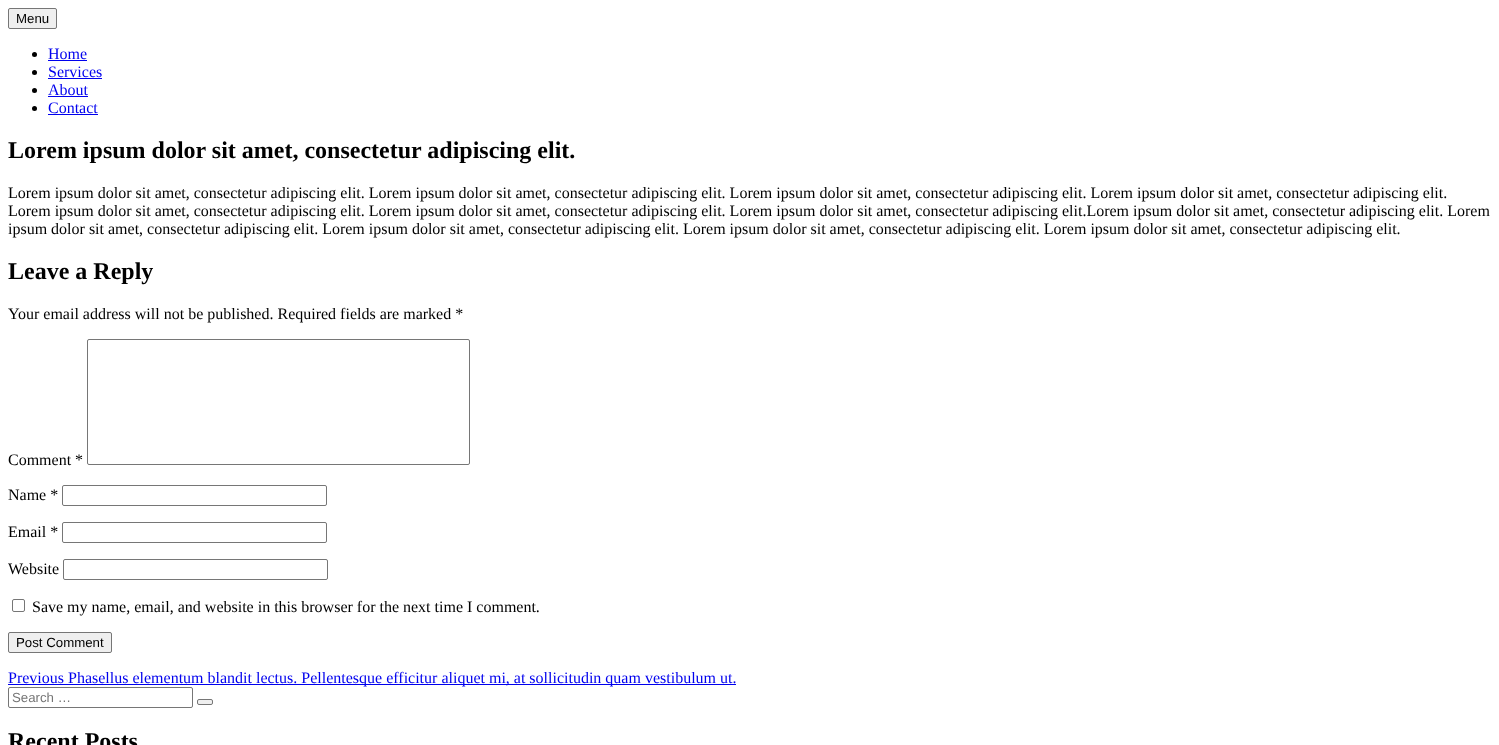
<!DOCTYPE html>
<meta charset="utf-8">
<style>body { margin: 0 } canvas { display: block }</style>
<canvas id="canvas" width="1499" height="745"></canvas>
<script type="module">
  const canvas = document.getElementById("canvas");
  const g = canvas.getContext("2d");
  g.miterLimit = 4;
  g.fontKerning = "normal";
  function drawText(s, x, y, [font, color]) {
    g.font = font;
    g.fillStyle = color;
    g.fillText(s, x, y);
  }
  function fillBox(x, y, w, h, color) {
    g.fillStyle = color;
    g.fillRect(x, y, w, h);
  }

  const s1 = ["13.25px Liberation Sans", "#000000"];
  const s2 = ["16px Liberation Serif", "#0000EE"];
  const s3 = ["bold 24px Liberation Serif", "#000000"];
  const s4 = ["16px Liberation Serif", "#000000"];
  const s5 = ["13.25px Liberation Sans", "#757575"];

  fillBox(0, 0, 1499, 745, "#FFFFFF");
  g.fillStyle = "#EFEFEF";
  g.beginPath();
  g.roundRect(8.5, 8.5, 48, 20, 1.5);
  g.fill();
  g.strokeStyle = "#767676";
  g.stroke();
  drawText("Menu", 16, 23, s1);
  g.beginPath();
  g.arc(34.5, 54.5, 2.5, 0, Math.PI * 2);
  g.fill();
  drawText("Home", 48, 59, s2);
  fillBox(48, 60, 39, 1, "#0000EE");
  g.fillStyle = "#000000";
  g.beginPath();
  g.arc(34.5, 72.5, 2.5, 0, Math.PI * 2);
  g.fill();
  drawText("Services", 48, 77, s2);
  fillBox(48, 78, 54, 1, "#0000EE");
  g.fillStyle = "#000000";
  g.beginPath();
  g.arc(34.5, 90.5, 2.5, 0, Math.PI * 2);
  g.fill();
  drawText("About", 48, 95, s2);
  fillBox(48, 96, 40, 1, "#0000EE");
  g.fillStyle = "#000000";
  g.beginPath();
  g.arc(34.5, 108.5, 2.5, 0, Math.PI * 2);
  g.fill();
  drawText("Contact", 48, 113, s2);
  fillBox(48, 114, 50, 1, "#0000EE");
  drawText("Lorem ipsum dolor sit amet, consectetur adipiscing elit.", 8, 158, s3);
  drawText("Lorem ipsum dolor sit amet, consectetur adipiscing elit. Lorem ipsum dolor sit amet, consectetur adipiscing elit. Lorem ipsum dolor sit amet, consectetur adipiscing elit. Lorem ipsum dolor sit amet, consectetur adipiscing elit.", 8, 198, s4);
  drawText("Lorem ipsum dolor sit amet, consectetur adipiscing elit. Lorem ipsum dolor sit amet, consectetur adipiscing elit. Lorem ipsum dolor sit amet, consectetur adipiscing elit.Lorem ipsum dolor sit amet, consectetur adipiscing elit. Lorem", 8, 216, s4);
  drawText("ipsum dolor sit amet, consectetur adipiscing elit. Lorem ipsum dolor sit amet, consectetur adipiscing elit. Lorem ipsum dolor sit amet, consectetur adipiscing elit. Lorem ipsum dolor sit amet, consectetur adipiscing elit.", 8, 234, s4);
  drawText("Leave a Reply", 8, 279, s3);
  drawText("Your email address will not be published. Required fields are marked *", 8, 319, s4);
  drawText("Comment *", 8, 465, s4);
  g.beginPath();
  g.roundRect(87.5, 339.5, 382, 125, 1.5);
  g.stroke();
  drawText("Name *", 8, 500, s4);
  g.beginPath();
  g.roundRect(62.5, 485.5, 264, 20, 1.5);
  g.stroke();
  drawText("Email *", 8, 537, s4);
  g.beginPath();
  g.roundRect(62.5, 522.5, 264, 20, 1.5);
  g.stroke();
  drawText("Website", 8, 574, s4);
  g.beginPath();
  g.roundRect(63.5, 559.5, 264, 20, 1.5);
  g.stroke();
  g.beginPath();
  g.roundRect(12.5, 599.5, 12, 12, 1.5);
  g.stroke();
  drawText("Save my name, email, and website in this browser for the next time I comment.", 32, 612, s4);
  g.fillStyle = "#EFEFEF";
  g.beginPath();
  g.roundRect(8.5, 632.5, 103, 20, 1.5);
  g.fill();
  g.stroke();
  drawText("Post Comment", 16, 647, s1);
  fillBox(8, 684, 728, 1, "#0000EE");
  drawText("Previous Phasellus elementum blandit lectus. Pellentesque efficitur aliquet mi, at sollicitudin quam vestibulum ut.", 8, 683, s2);
  g.beginPath();
  g.roundRect(8.5, 687.5, 184, 20, 1.5);
  g.stroke();
  drawText("Search …", 12, 702, s5);
  g.fillStyle = "#EFEFEF";
  g.beginPath();
  g.roundRect(197.5, 699.5, 15, 5, 1.5);
  g.fill();
  g.stroke();
  drawText("Recent Posts", 8, 749, s3);
</script>
